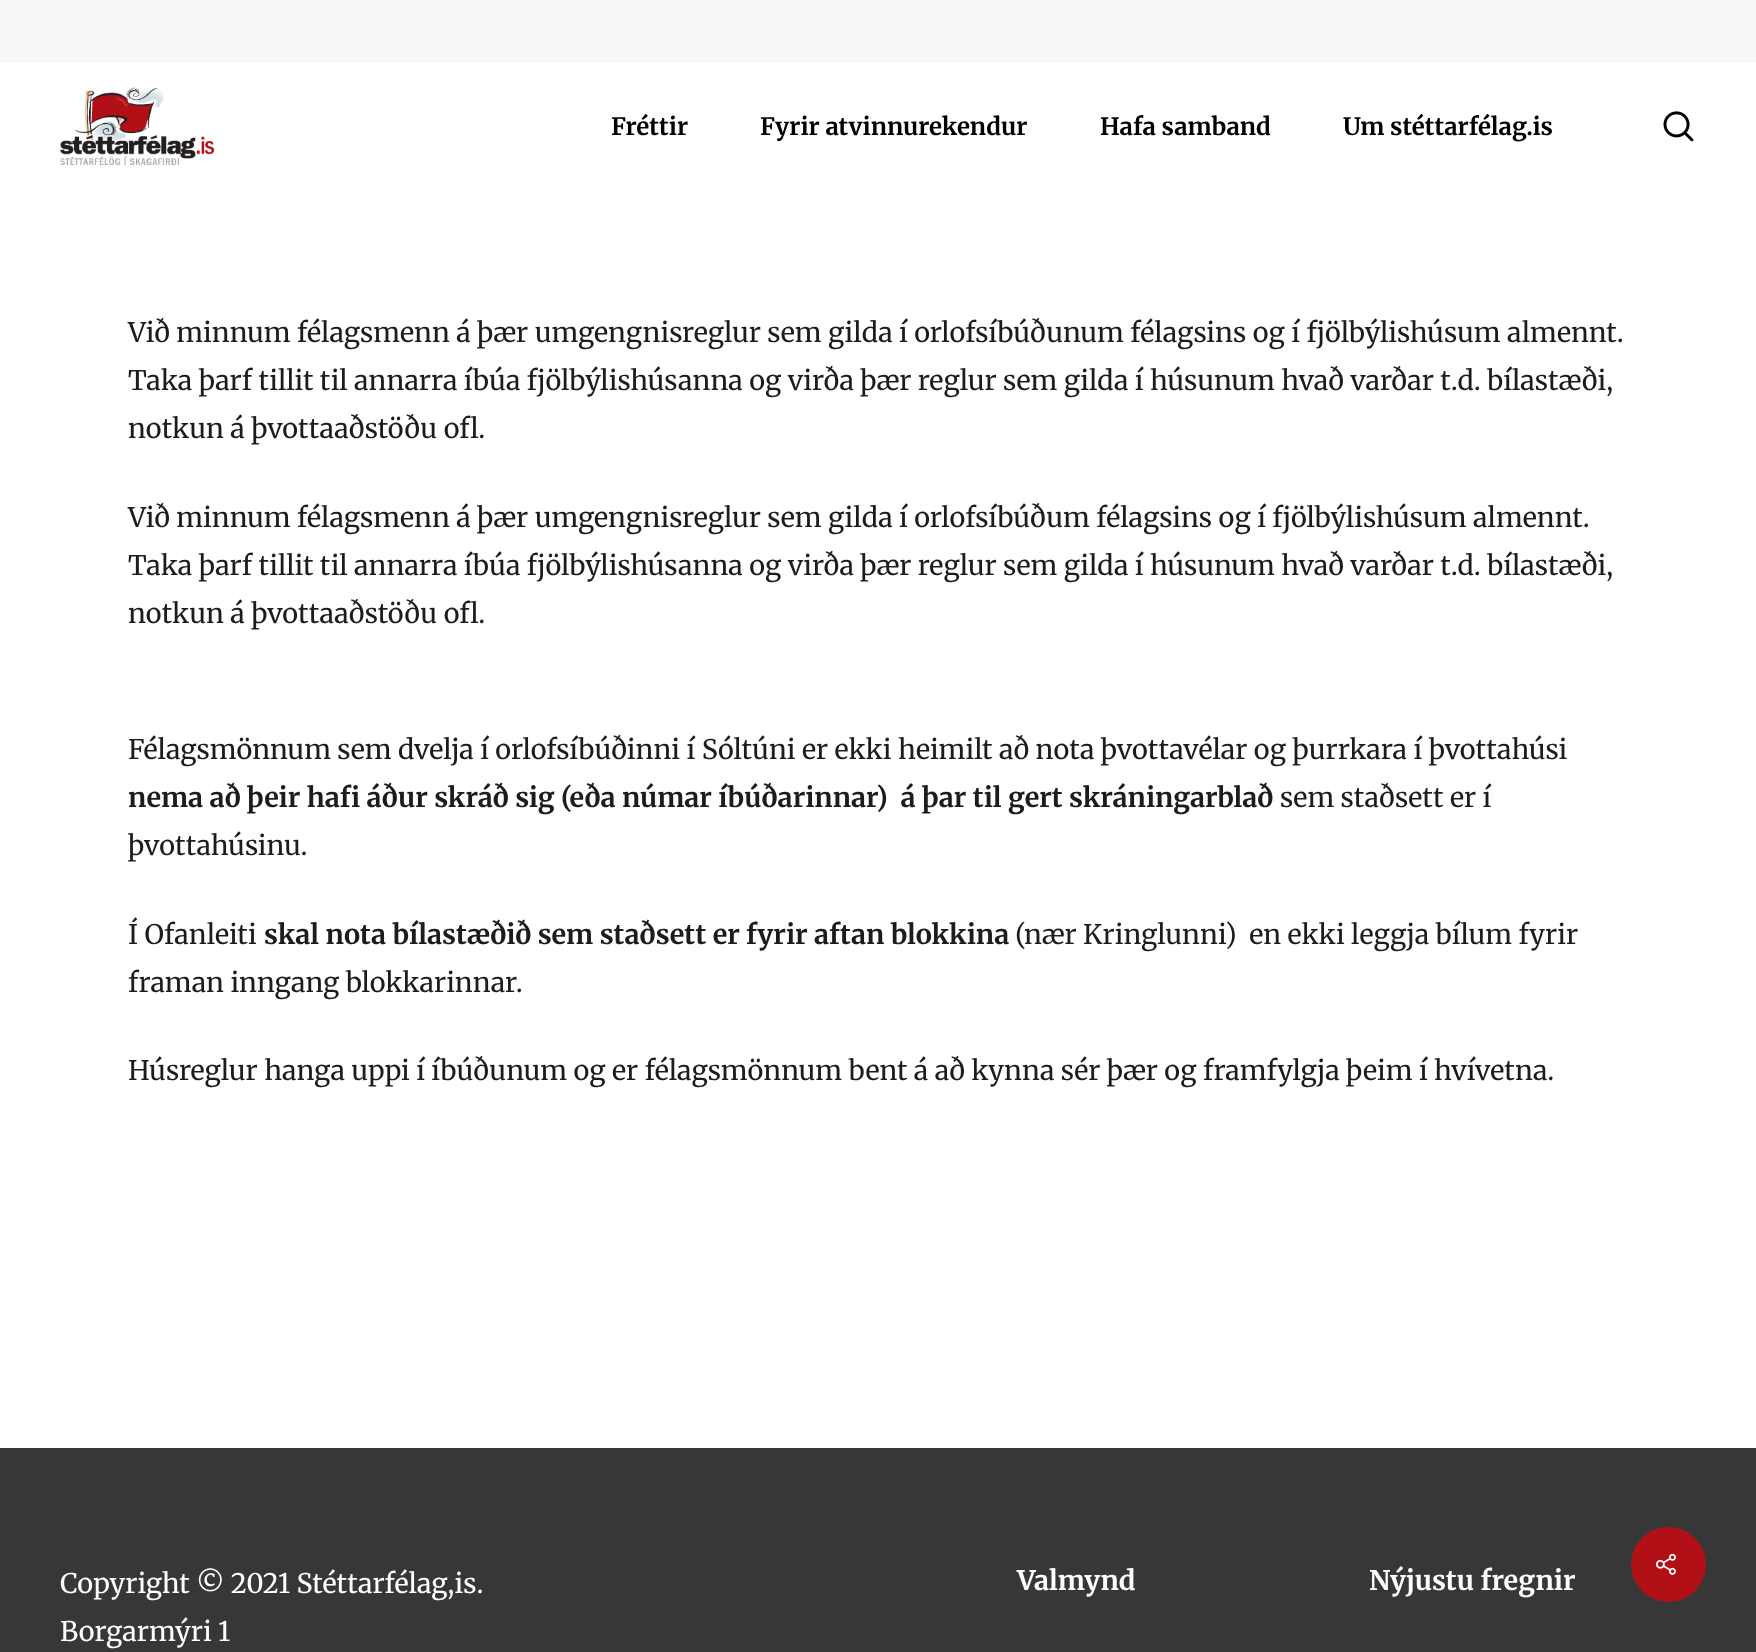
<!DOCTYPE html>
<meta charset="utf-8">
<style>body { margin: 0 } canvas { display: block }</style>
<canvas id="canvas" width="1756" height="1652"></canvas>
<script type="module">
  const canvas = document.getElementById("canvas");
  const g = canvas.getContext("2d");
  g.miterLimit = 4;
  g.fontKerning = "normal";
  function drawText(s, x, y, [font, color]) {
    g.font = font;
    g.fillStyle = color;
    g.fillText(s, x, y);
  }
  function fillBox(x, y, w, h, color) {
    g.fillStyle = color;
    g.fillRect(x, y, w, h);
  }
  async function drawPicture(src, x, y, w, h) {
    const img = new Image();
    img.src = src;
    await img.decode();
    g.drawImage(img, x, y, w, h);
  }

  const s1 = ["bold 24px Merriweather", "#000000"];
  const s2 = ["27px Merriweather", "#1C1C1C"];
  const s3 = ["bold 27px Merriweather", "#1C1C1C"];
  const s4 = ["27px Merriweather", "#FFFFFF"];
  const s5 = ["bold 27px Merriweather", "#FFFFFF"];

  fillBox(0, 0, 1756, 1652, "#FFFFFF");
  fillBox(0, 0, 1756, 63, "#F8F8F8");
  await drawPicture("pic1.png", 60, 87, 155, 78);
  drawText("Fréttir", 611, 135, s1);
  drawText("Fyrir atvinnurekendur", 760, 135, s1);
  drawText("Hafa samband", 1100, 135, s1);
  drawText("Um stéttarfélag.is", 1343, 135, s1);
  await drawPicture("pic2.png", 1663, 111, 31, 31);
  drawText("Við minnum félagsmenn á þær umgengnisreglur sem gilda í orlofsíbúðunum félagsins og í fjölbýlishúsum almennt.", 128, 342, s2);
  drawText("Taka þarf tillit til annarra íbúa fjölbýlishúsanna og virða þær reglur sem gilda í húsunum hvað varðar t.d. bílastæði,", 128, 390, s2);
  drawText("notkun á þvottaaðstöðu ofl.", 128, 438, s2);
  drawText("Við minnum félagsmenn á þær umgengnisreglur sem gilda í orlofsíbúðum félagsins og í fjölbýlishúsum almennt.", 128, 527, s2);
  drawText("Taka þarf tillit til annarra íbúa fjölbýlishúsanna og virða þær reglur sem gilda í húsunum hvað varðar t.d. bílastæði,", 128, 575, s2);
  drawText("notkun á þvottaaðstöðu ofl.", 128, 623, s2);
  drawText("Félagsmönnum sem dvelja í orlofsíbúðinni í Sóltúni er ekki heimilt að nota þvottavélar og þurrkara í þvottahúsi", 128, 759, s2);
  drawText("nema að þeir hafi áður skráð sig (eða númar íbúðarinnar)  á þar til gert skráningarblað", 128, 807, s3);
  drawText("sem staðsett er í", 1280, 807, s2);
  drawText("þvottahúsinu.", 128, 855, s2);
  drawText("Í Ofanleiti", 128, 944, s2);
  drawText("skal nota bílastæðið sem staðsett er fyrir aftan blokkina", 264, 944, s3);
  drawText("(nær Kringlunni)  en ekki leggja bílum fyrir", 1015, 944, s2);
  drawText("framan inngang blokkarinnar.", 128, 992, s2);
  drawText("Húsreglur hanga uppi í íbúðunum og er félagsmönnum bent á að kynna sér þær og framfylgja þeim í hvívetna.", 128, 1080, s2);
  fillBox(0, 1448, 1756, 204, "#373737");
  drawText("Copyright © 2021 Stéttarfélag,is.", 60, 1593, s4);
  drawText("Borgarmýri 1", 60, 1641, s4);
  drawText("Valmynd", 1017, 1590, s5);
  drawText("Nýjustu fregnir", 1369, 1590, s5);
  g.fillStyle = "#B11116";
  g.beginPath();
  g.arc(1668.5, 1564.5, 37.5, 0, Math.PI * 2);
  g.fill();
  await drawPicture("pic3.png", 1656, 1553, 20, 22);
</script>
